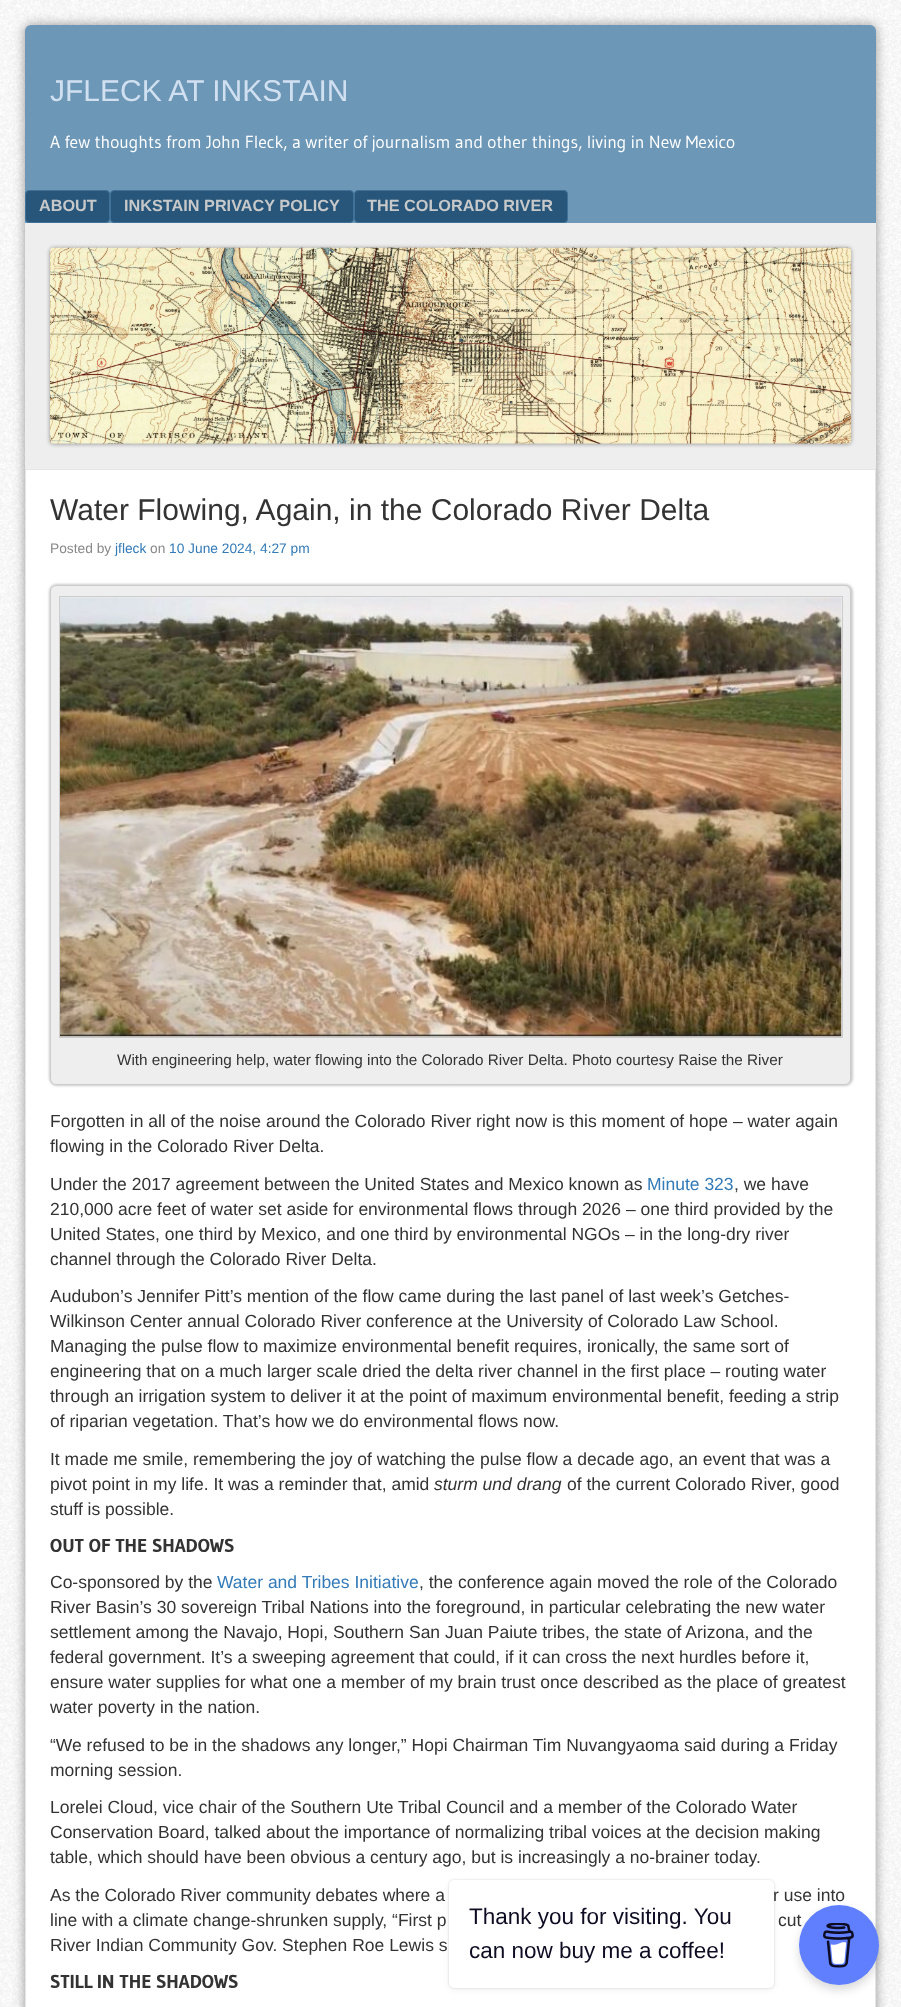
<!DOCTYPE html>
<meta charset="utf-8">
<style>body { margin: 0 } canvas { display: block }</style>
<canvas id="canvas" width="901" height="2007"></canvas>
<script type="module">
  const canvas = document.getElementById("canvas");
  const g = canvas.getContext("2d");
  g.miterLimit = 4;
  g.fontKerning = "normal";
  function drawText(s, x, y, [font, color]) {
    g.font = font;
    g.fillStyle = color;
    g.fillText(s, x, y);
  }
  function fillBox(x, y, w, h, color) {
    g.fillStyle = color;
    g.fillRect(x, y, w, h);
  }
  function fillRounded(x, y, w, h, r, color) {
    g.fillStyle = color;
    g.beginPath();
    g.roundRect(x, y, w, h, r);
    g.fill();
  }
  async function drawPicture(src, x, y, w, h) {
    const img = new Image();
    img.src = src;
    await img.decode();
    g.drawImage(img, x, y, w, h);
  }

  const s1 = ["30px Liberation Sans", "#D0E0F0"];
  const s2 = ["17.5px Gudea", "#FFFFFF"];
  const s3 = ["bold 16.25px Liberation Sans", "#C6C8C9"];
  const s4 = ["30px Liberation Sans", "#333333"];
  const s5 = ["13.75px Liberation Sans", "#888888"];
  const s6 = ["13.75px Liberation Sans", "#337AB7"];
  const s7 = ["15.3px Liberation Sans", "#333333"];
  const s8 = ["17.5px Liberation Sans", "#333333"];
  const s9 = ["17.5px Liberation Sans", "#337AB7"];
  const s10 = ["italic 17.5px Liberation Sans", "#333333"];
  const s11 = ["bold 18.75px Gudea", "#333333"];
  const s12 = ["22.5px Liberation Sans", "#0D0C22"];

  fillBox(0, 0, 901, 2007, "#FFFFFF");
  await drawPicture("pic1.png", 0, 0, 901, 2007);
  g.fillStyle = "rgba(0, 0, 0, 0.4)";
  g.filter = "blur(6px)";
  g.beginPath();
  g.roundRect(25, 25, 851, 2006, 6);
  g.fill();
  g.filter = "none";
  g.fillStyle = "#6D97B7";
  g.beginPath();
  g.roundRect(25, 25, 851, 444, [6, 6, 0, 0]);
  g.fill();
  drawText("JFLECK AT INKSTAIN", 50, 101, s1);
  drawText("A few thoughts from John Fleck, a writer of journalism and other things, living in New Mexico", 50, 148, s2);
  g.fillStyle = "#27567A";
  g.beginPath();
  g.roundRect(25.5, 190.5, 84, 32, 3.5);
  g.fill();
  g.strokeStyle = "#417196";
  g.stroke();
  drawText("ABOUT", 39, 211, s3);
  g.fillStyle = "#27567A";
  g.beginPath();
  g.roundRect(110.5, 190.5, 243, 32, 3.5);
  g.fill();
  g.stroke();
  drawText("INKSTAIN PRIVACY POLICY", 124, 211, s3);
  g.fillStyle = "#27567A";
  g.beginPath();
  g.roundRect(354.5, 190.5, 213, 32, 3.5);
  g.fill();
  g.stroke();
  drawText("THE COLORADO RIVER", 367, 211, s3);
  fillBox(25, 223, 851, 246, "#EEEEEE");
  g.fillStyle = "rgba(0, 0, 0, 0.4)";
  g.filter = "blur(2px)";
  g.beginPath();
  g.roundRect(50, 248, 801, 196, 4);
  g.fill();
  g.filter = "none";
  await drawPicture("pic2.png", 50, 247, 802, 197);
  g.fillStyle = "#FFFFFF";
  g.beginPath();
  g.rect(25.5, 469.5, 850, 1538);
  g.fill();
  g.strokeStyle = "#E6E6E6";
  g.stroke();
  drawText("Water Flowing, Again, in the Colorado River Delta", 50, 520, s4);
  drawText("Posted by", 50, 553, s5);
  drawText("jfleck", 115, 553, s6);
  drawText("on", 150, 553, s5);
  drawText("10 June 2024, 4:27 pm", 169, 553, s6);
  g.fillStyle = "rgba(0, 0, 0, 0.2)";
  g.filter = "blur(1px)";
  g.beginPath();
  g.roundRect(49, 584, 804, 502, 8);
  g.fill();
  g.filter = "none";
  g.fillStyle = "#EEEEEE";
  g.beginPath();
  g.roundRect(50.5, 585.5, 800, 499, 5.5);
  g.fill();
  g.strokeStyle = "#CCCCCC";
  g.stroke();
  g.strokeRect(59.5, 596.5, 783, 441);
  await drawPicture("pic3.png", 60, 597, 782, 440);
  drawText("With engineering help, water flowing into the Colorado River Delta. Photo courtesy Raise the River", 117, 1065, s7);
  drawText("Forgotten in all of the noise around the Colorado River right now is this moment of hope – water again", 50, 1127, s8);
  drawText("flowing in the Colorado River Delta.", 50, 1152, s8);
  drawText("Under the 2017 agreement between the United States and Mexico known as", 50, 1190, s8);
  drawText("Minute 323", 647, 1190, s9);
  drawText(", we have", 734, 1190, s8);
  drawText("210,000 acre feet of water set aside for environmental flows through 2026 – one third provided by the", 50, 1215, s8);
  drawText("United States, one third by Mexico, and one third by environmental NGOs – in the long-dry river", 50, 1240, s8);
  drawText("channel through the Colorado River Delta.", 50, 1265, s8);
  drawText("Audubon’s Jennifer Pitt’s mention of the flow came during the last panel of last week’s Getches-", 50, 1302, s8);
  drawText("Wilkinson Center annual Colorado River conference at the University of Colorado Law School.", 50, 1327, s8);
  drawText("Managing the pulse flow to maximize environmental benefit requires, ironically, the same sort of", 50, 1352, s8);
  drawText("engineering that on a much larger scale dried the delta river channel in the first place – routing water", 50, 1377, s8);
  drawText("through an irrigation system to deliver it at the point of maximum environmental benefit, feeding a strip", 50, 1402, s8);
  drawText("of riparian vegetation. That’s how we do environmental flows now.", 50, 1427, s8);
  drawText("It made me smile, remembering the joy of watching the pulse flow a decade ago, an event that was a", 50, 1465, s8);
  drawText("pivot point in my life. It was a reminder that, amid", 50, 1490, s8);
  drawText("sturm und drang", 434, 1490, s10);
  drawText("of the current Colorado River, good", 567, 1490, s8);
  drawText("stuff is possible.", 50, 1515, s8);
  drawText("OUT OF THE SHADOWS", 50, 1552, s11);
  drawText("Co-sponsored by the", 50, 1588, s8);
  drawText("Water and Tribes Initiative", 217, 1588, s9);
  drawText(", the conference again moved the role of the Colorado", 419, 1588, s8);
  drawText("River Basin’s 30 sovereign Tribal Nations into the foreground, in particular celebrating the new water", 50, 1613, s8);
  drawText("settlement among the Navajo, Hopi, Southern San Juan Paiute tribes, the state of Arizona, and the", 50, 1638, s8);
  drawText("federal government. It’s a sweeping agreement that could, if it can cross the next hurdles before it,", 50, 1663, s8);
  drawText("ensure water supplies for what one a member of my brain trust once described as the place of greatest", 50, 1688, s8);
  drawText("water poverty in the nation.", 50, 1713, s8);
  drawText("“We refused to be in the shadows any longer,” Hopi Chairman Tim Nuvangyaoma said during a Friday", 50, 1751, s8);
  drawText("morning session.", 50, 1776, s8);
  drawText("Lorelei Cloud, vice chair of the Southern Ute Tribal Council and a member of the Colorado Water", 50, 1813, s8);
  drawText("Conservation Board, talked about the importance of normalizing tribal voices at the decision making", 50, 1838, s8);
  drawText("table, which should have been obvious a century ago, but is increasingly a no-brainer today.", 50, 1863, s8);
  drawText("As the Colorado River community debates where a", 50, 1901, s8);
  drawText("r use into", 773, 1901, s8);
  drawText("line with a climate change-shrunken supply, “First p", 50, 1926, s8);
  drawText("cut", 778, 1926, s8);
  drawText("River Indian Community Gov. Stephen Roe Lewis s", 50, 1951, s8);
  drawText("STILL IN THE SHADOWS", 50, 1988, s11);
  g.fillStyle = "rgba(0, 0, 0, 0.15)";
  g.filter = "blur(1px)";
  g.beginPath();
  g.roundRect(449, 1880, 325, 108, 5);
  g.fill();
  g.filter = "none";
  g.fillStyle = "rgba(0, 0, 0, 0.05)";
  g.filter = "blur(3px)";
  g.beginPath();
  g.roundRect(449, 1883, 325, 107, 5);
  g.fill();
  g.filter = "none";
  fillRounded(449, 1880, 325, 108, 5, "#FFFFFF");
  drawText("Thank you for visiting. You", 469, 1924, s12);
  drawText("can now buy me a coffee!", 469, 1958, s12);
  g.fillStyle = "rgba(0, 0, 0, 0.15)";
  g.filter = "blur(5px)";
  g.beginPath();
  g.roundRect(799, 1910, 80, 80, 40);
  g.fill();
  g.filter = "none";
  g.fillStyle = "#5F7FFF";
  g.beginPath();
  g.arc(839, 1945, 40, 0, Math.PI * 2);
  g.fill();
  await drawPicture("pic4.png", 823, 1923, 31, 45);
</script>
